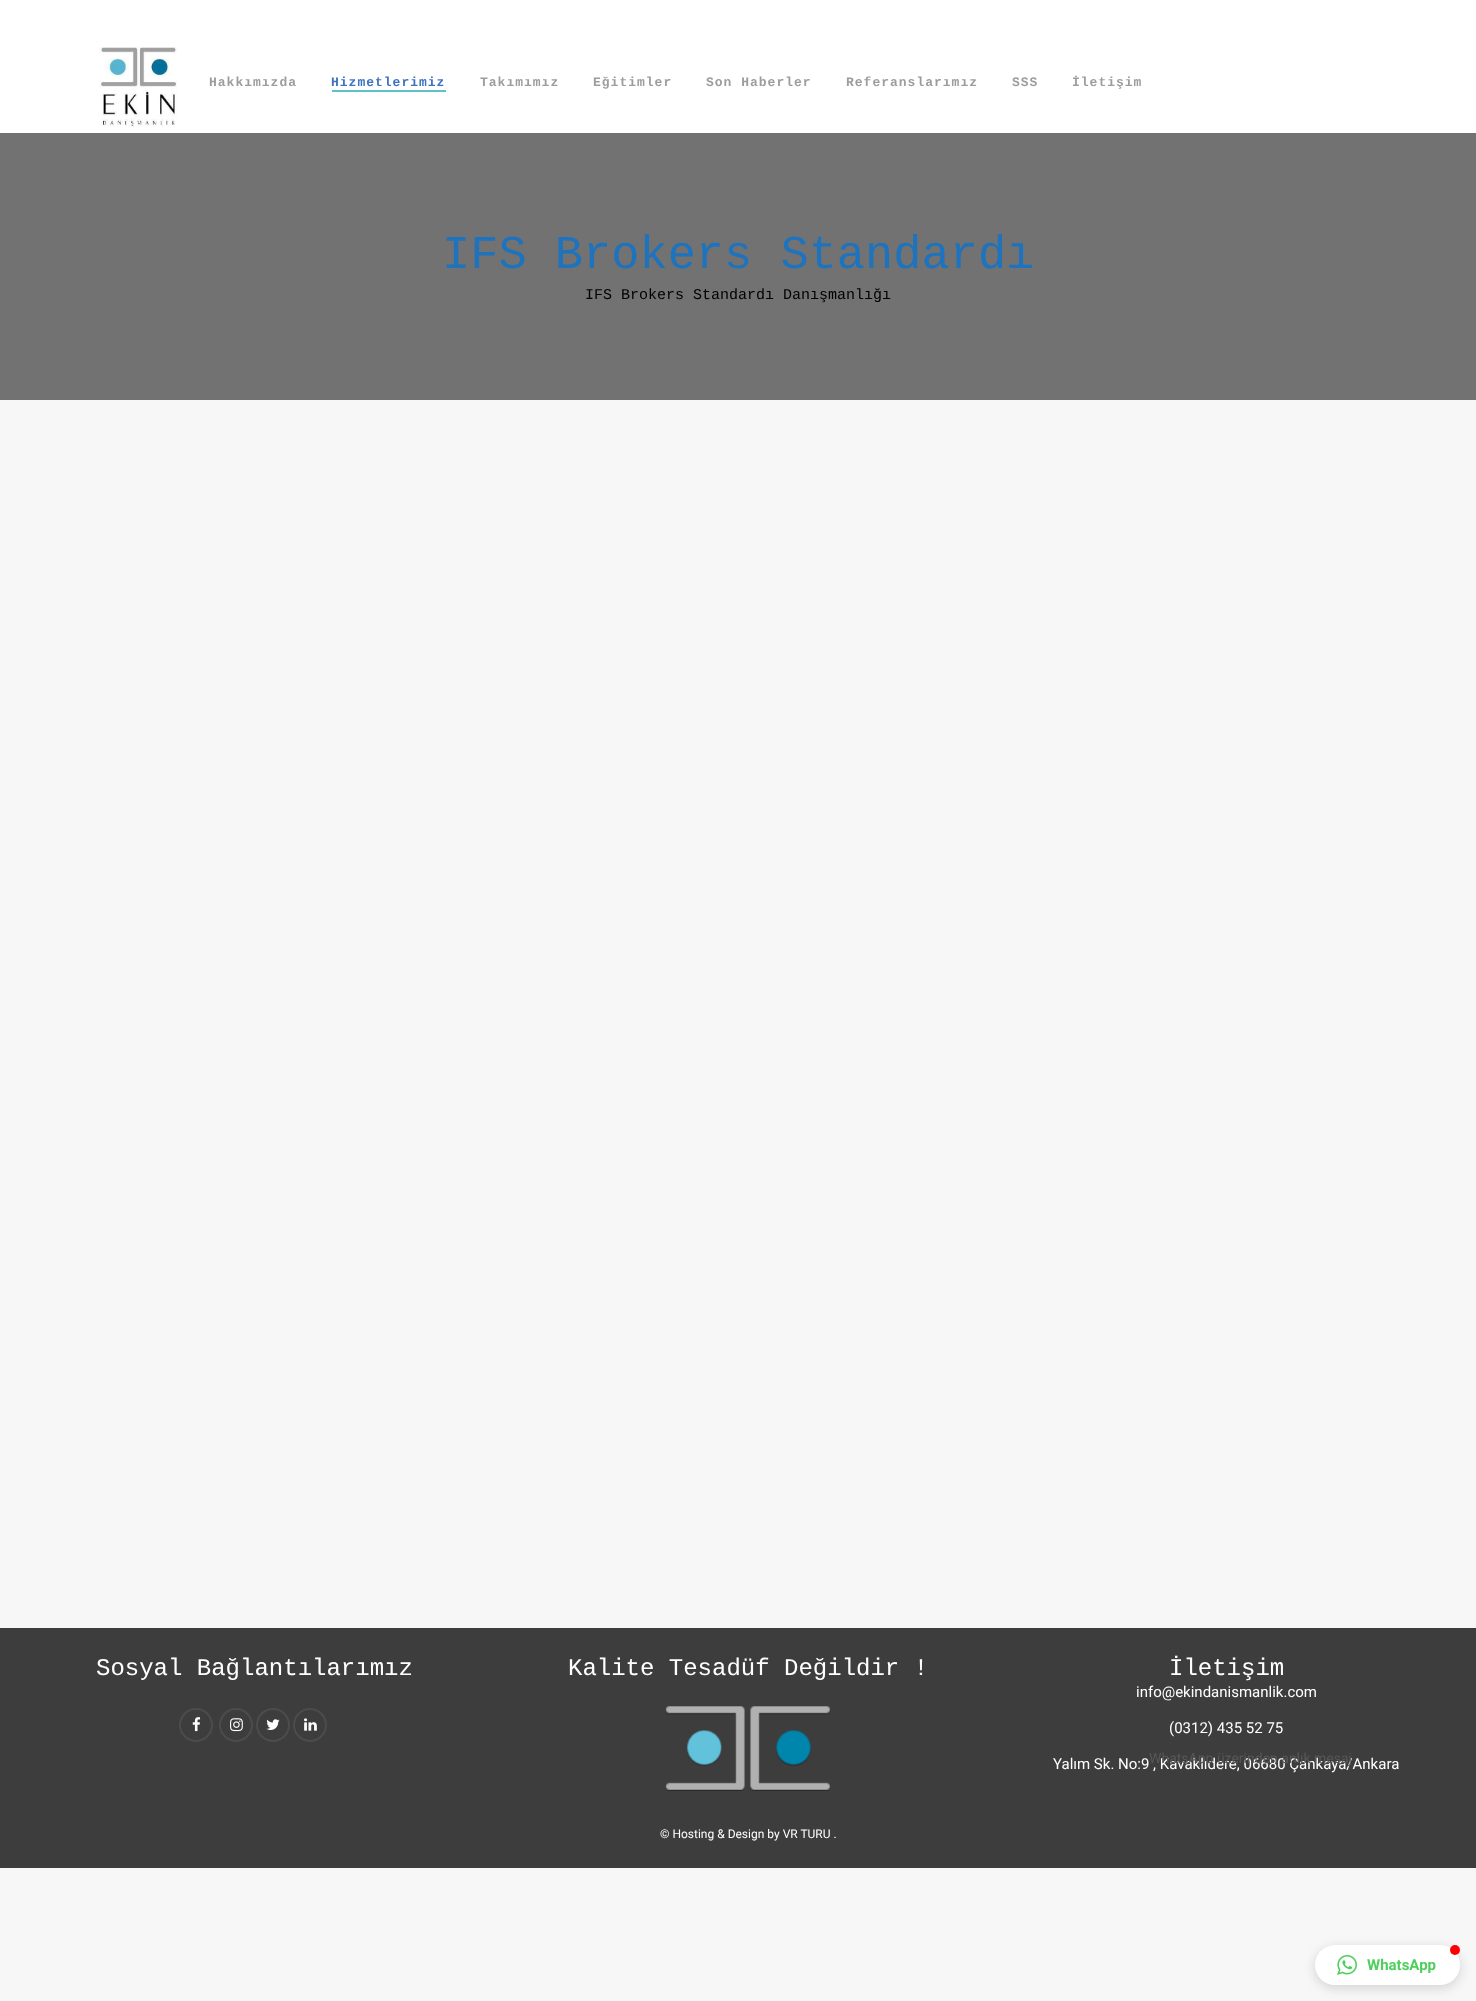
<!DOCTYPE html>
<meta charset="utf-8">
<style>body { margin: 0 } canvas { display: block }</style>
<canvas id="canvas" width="1476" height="2001"></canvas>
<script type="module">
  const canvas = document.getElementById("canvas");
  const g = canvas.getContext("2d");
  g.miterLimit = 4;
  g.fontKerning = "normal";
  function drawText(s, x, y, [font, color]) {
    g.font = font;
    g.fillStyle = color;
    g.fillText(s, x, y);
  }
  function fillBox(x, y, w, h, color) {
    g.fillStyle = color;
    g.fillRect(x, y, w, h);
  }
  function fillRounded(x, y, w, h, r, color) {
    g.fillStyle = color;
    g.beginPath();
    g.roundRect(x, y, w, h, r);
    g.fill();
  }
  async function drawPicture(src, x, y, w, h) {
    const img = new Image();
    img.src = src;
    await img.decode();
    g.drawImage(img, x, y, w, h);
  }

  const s1 = ["bold 13px Liberation Mono", "#9D9D9D"];
  const s2 = ["bold 13px Liberation Mono", "#3F73C1"];
  const s3 = ["47px Liberation Mono", "#1E73BE"];
  const s4 = ["15px Liberation Mono", "#000000"];
  const s5 = ["24px Liberation Mono", "#FFFFFF"];
  const s6 = ["15px Roboto", "#FFFFFF"];
  const s7 = ["14px Roboto", "#575757"];
  const s8 = ["bold 15px Roboto", "#4FCE5D"];
  const s9 = ["12px Roboto", "#FFFFFF"];

  fillBox(0, 0, 1476, 2001, "#F7F7F7");
  fillBox(0, 0, 1476, 133, "#FFFFFF");
  await drawPicture("pic1.png", 99, 47, 78, 80);
  g.letterSpacing = "1px";
  drawText("Hakkımızda", 209, 86, s1);
  drawText("Hizmetlerimiz", 331, 86, s2);
  fillBox(332, 90, 114, 2, "#60C2C9");
  drawText("Takımımız", 480, 86, s1);
  drawText("Eğitimler", 593, 86, s1);
  drawText("Son Haberler", 706, 86, s1);
  drawText("Referanslarımız", 846, 86, s1);
  drawText("SSS", 1012, 86, s1);
  drawText("İletişim", 1072, 86, s1);
  fillBox(0, 133, 1476, 267, "#727272");
  g.letterSpacing = "0px";
  drawText("IFS Brokers Standardı", 442, 268, s3);
  drawText("IFS Brokers Standardı Danışmanlığı", 585, 299, s4);
  fillBox(0, 1628, 1476, 240, "#3D3D3D");
  drawText("İletişim", 1169, 1675, s5);
  drawText("info@ekindanismanlik.com", 1136, 1697, s6);
  drawText("(0312) 435 52 75", 1169, 1733, s6);
  drawText("Yalım Sk. No:9 , Kavaklıdere, 06680 Çankaya/Ankara", 1053, 1769, s6);
  drawText("Sosyal Bağlantılarımız", 96, 1675, s5);
  g.beginPath();
  g.arc(196, 1725, 16, 0, Math.PI * 2);
  g.strokeStyle = "#4C4C4C";
  g.lineWidth = 2;
  g.stroke();
  await drawPicture("pic2.png", 192, 1717, 9, 15);
  g.beginPath();
  g.arc(236, 1725, 16, 0, Math.PI * 2);
  g.stroke();
  await drawPicture("pic3.png", 230, 1718, 13, 14);
  g.beginPath();
  g.arc(273, 1725, 16, 0, Math.PI * 2);
  g.stroke();
  await drawPicture("pic4.png", 266, 1719, 14, 11);
  g.beginPath();
  g.arc(310, 1725, 16, 0, Math.PI * 2);
  g.stroke();
  await drawPicture("pic5.png", 304, 1718, 13, 13);
  drawText("WhatsApp üzerinden anlık mesaj", 1149, 1763, s7);
  g.fillStyle = "rgba(0, 0, 0, 0.15)";
  g.filter = "blur(6px)";
  g.beginPath();
  g.roundRect(1315, 1948, 145, 40, 20);
  g.fill();
  g.filter = "none";
  fillRounded(1315, 1945, 145, 40, 20, "#FFFFFF");
  g.fillStyle = "#FF0000";
  g.beginPath();
  g.arc(1455, 1950, 5, 0, Math.PI * 2);
  g.fill();
  await drawPicture("pic6.png", 1337, 1955, 20, 20);
  drawText("WhatsApp", 1367, 1970, s8);
  drawText("Kalite Tesadüf Değildir !", 568, 1675, s5);
  await drawPicture("pic7.png", 665, 1706, 165, 85);
  drawText("© Hosting & Design by VR TURU .", 660, 1838, s9);
</script>
